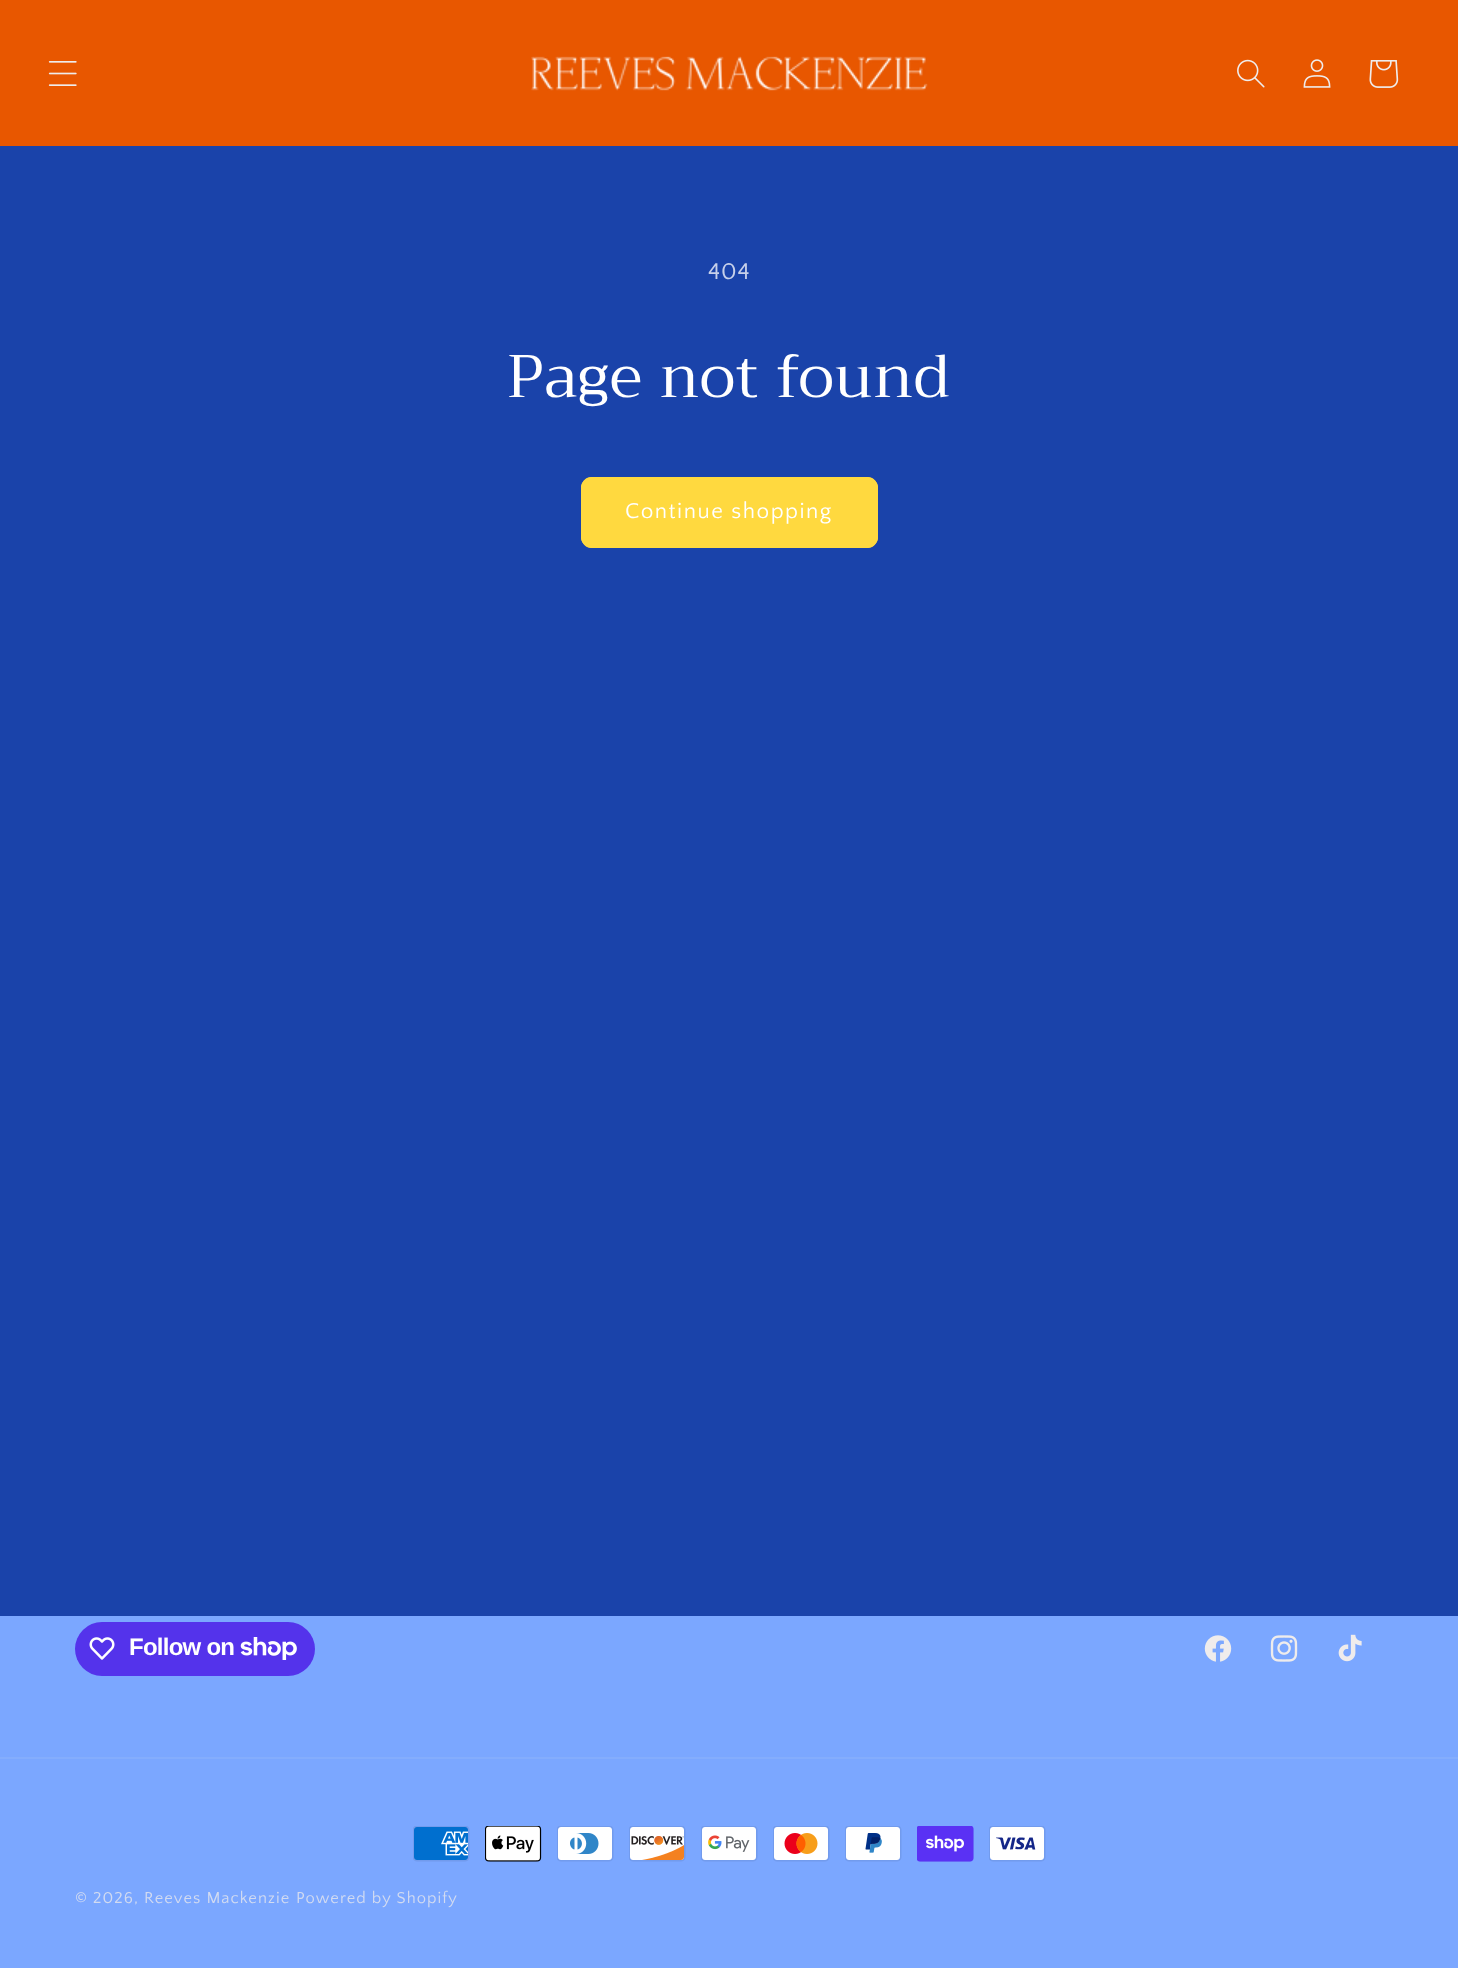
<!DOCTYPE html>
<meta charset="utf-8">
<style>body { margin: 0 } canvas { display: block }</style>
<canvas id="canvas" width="1458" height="1968"></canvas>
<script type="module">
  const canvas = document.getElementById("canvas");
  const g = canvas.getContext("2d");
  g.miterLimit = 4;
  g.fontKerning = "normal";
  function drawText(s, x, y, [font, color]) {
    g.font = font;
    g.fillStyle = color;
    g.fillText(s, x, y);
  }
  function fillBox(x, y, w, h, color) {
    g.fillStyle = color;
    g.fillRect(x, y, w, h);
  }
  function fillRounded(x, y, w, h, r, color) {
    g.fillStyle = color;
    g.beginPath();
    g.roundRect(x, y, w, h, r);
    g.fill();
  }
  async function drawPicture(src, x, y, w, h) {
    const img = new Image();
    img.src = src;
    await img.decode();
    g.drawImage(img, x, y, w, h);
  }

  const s1 = ["24px Quattrocento Sans", "#C6D0EA"];
  const s2 = ["60px Trirong", "#FFFFFF"];
  const s3 = ["22.5px Quattrocento Sans", "#FFFFFF"];
  const s4 = ["bold 24px Liberation Sans", "#FFFFFF"];
  const s5 = ["16.5px Quattrocento Sans", "#D2DBF1"];

  fillBox(0, 0, 1458, 1968, "#1A43AA");
  fillBox(0, 0, 1458, 146, "#E85700");
  await drawPicture("pic1.png", 48, 61, 29, 25);
  await drawPicture("pic2.png", 531, 56, 397, 35);
  await drawPicture("pic3.png", 1237, 59, 28, 29);
  await drawPicture("pic4.png", 1303, 59, 28, 29);
  await drawPicture("pic5.png", 1369, 60, 30, 28);
  g.letterSpacing = "0.9px";
  drawText("404", 708, 279, s1);
  drawText("Page not found", 507, 397, s2);
  fillRounded(581, 477, 297, 71, 11, "#FFD93F");
  g.beginPath();
  g.roundRect(582, 478, 295, 69, 10);
  g.strokeStyle = "#FFD93F";
  g.lineWidth = 2;
  g.stroke();
  g.letterSpacing = "1.5px";
  drawText("Continue shopping", 625, 518, s3);
  fillBox(0, 1616, 1458, 352, "#7BA7FF");
  fillRounded(75, 1622, 240, 54, 27, "#5433EB");
  await drawPicture("pic6.png", 89, 1637, 26, 23);
  g.letterSpacing = "-0.75px";
  drawText("Follow on", 129, 1655, s4);
  await drawPicture("pic7.png", 240, 1637, 57, 23);
  await drawPicture("pic8.png", 1204, 1635, 28, 27);
  await drawPicture("pic9.png", 1270, 1635, 28, 27);
  await drawPicture("pic10.png", 1338, 1634, 24, 28);
  fillBox(0, 1757, 1458, 2, "#84ADFD");
  await drawPicture("pic11.png", 413, 1826, 57, 36);
  await drawPicture("pic12.png", 485, 1826, 57, 36);
  await drawPicture("pic13.png", 557, 1826, 57, 36);
  await drawPicture("pic14.png", 629, 1826, 57, 36);
  await drawPicture("pic15.png", 701, 1826, 57, 36);
  await drawPicture("pic16.png", 773, 1826, 57, 36);
  await drawPicture("pic17.png", 845, 1826, 57, 36);
  await drawPicture("pic18.png", 917, 1826, 57, 36);
  await drawPicture("pic19.png", 989, 1826, 57, 36);
  g.letterSpacing = "1.05px";
  drawText("© 2026, Reeves Mackenzie", 75, 1903, s5);
  drawText("Powered by Shopify", 296, 1903, s5);
</script>
